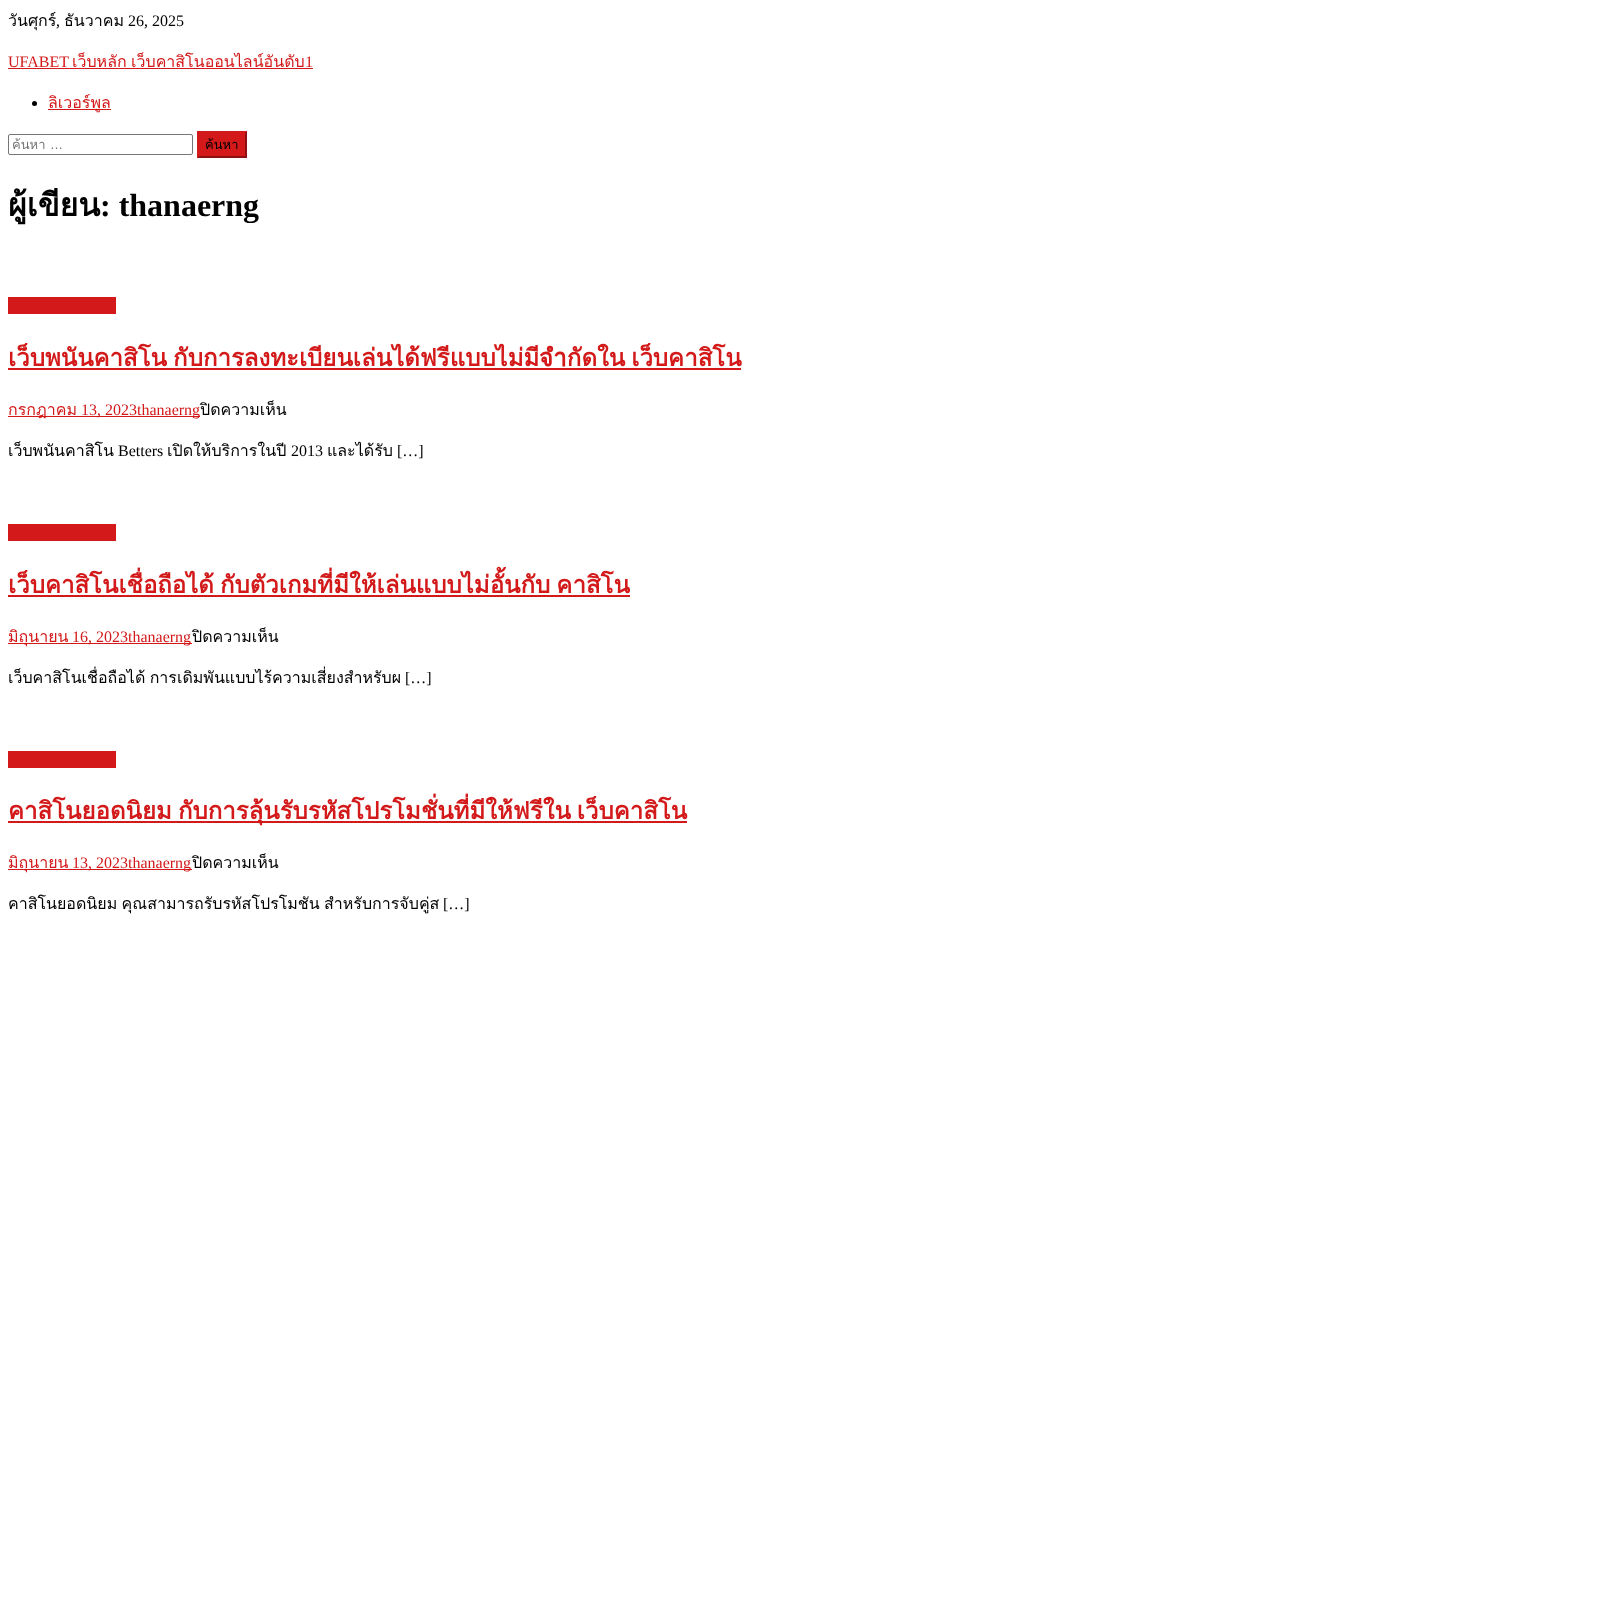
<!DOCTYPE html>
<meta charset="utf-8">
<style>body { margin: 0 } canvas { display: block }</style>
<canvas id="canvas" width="1614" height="1599"></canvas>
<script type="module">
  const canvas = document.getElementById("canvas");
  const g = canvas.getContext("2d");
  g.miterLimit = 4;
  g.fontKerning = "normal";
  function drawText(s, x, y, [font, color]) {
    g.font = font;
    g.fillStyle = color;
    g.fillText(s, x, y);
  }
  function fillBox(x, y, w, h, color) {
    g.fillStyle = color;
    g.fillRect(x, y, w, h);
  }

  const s1 = ["16px Loma", "#000000"];
  const s2 = ["16px Liberation Serif", "#000000"];
  const s3 = ["16px Liberation Serif", "#D31919"];
  const s4 = ["16px Loma", "#D31919"];
  const s5 = ["13px Loma", "#757575"];
  const s6 = ["13px Liberation Sans", "#757575"];
  const s7 = ["13px Loma", "#000000"];
  const s8 = ["bold 32px Loma", "#000000"];
  const s9 = ["bold 32px Liberation Serif", "#000000"];
  const s10 = ["bold 24px Loma", "#D31919"];

  fillBox(0, 0, 1614, 1599, "#FFFFFF");
  drawText("วันศุกร์", 8, 26, s1);
  drawText(",", 56, 26, s2);
  drawText("ธันวาคม", 64, 26, s1);
  drawText("26, 2025", 128, 26, s2);
  drawText("UFABET", 8, 67, s3);
  fillBox(8, 68, 305, 1, "#D31919");
  g.wordSpacing = "-1px";
  drawText("เว็บหลัก เว็บคาสิโนออนไลน์อันดับ", 72, 67, s4);
  g.wordSpacing = "0px";
  drawText("1", 305, 67, s3);
  g.fillStyle = "#000000";
  g.beginPath();
  g.arc(34.5, 103.5, 2.5, 0, Math.PI * 2);
  g.fill();
  fillBox(48, 109, 63, 1, "#D31919");
  drawText("ลิเวอร์พูล", 48, 108, s4);
  g.beginPath();
  g.roundRect(8.5, 134.5, 184, 20, 1.5);
  g.strokeStyle = "#767676";
  g.stroke();
  g.save();
  g.beginPath();
  g.rect(12, 136, 164, 17);
  g.clip();
  drawText("ค้นหา", 12, 149, s5);
  g.restore();
  drawText("…", 50, 149, s6);
  fillBox(197, 131, 50, 27, "#D31919");
  g.fillStyle = "#8D1111";
  g.beginPath();
  g.moveTo(247, 131);
  g.lineTo(247, 158);
  g.lineTo(245, 156);
  g.lineTo(245, 133);
  g.closePath();
  g.fill();
  g.beginPath();
  g.moveTo(247, 158);
  g.lineTo(197, 158);
  g.lineTo(199, 156);
  g.lineTo(245, 156);
  g.closePath();
  g.fill();
  g.fillStyle = "#D31919";
  g.beginPath();
  g.moveTo(197, 158);
  g.lineTo(197, 131);
  g.lineTo(199, 133);
  g.lineTo(199, 156);
  g.closePath();
  g.fill();
  drawText("ค้นหา", 205, 149, s7);
  drawText("ผู้เขียน", 8, 216, s8);
  drawText(": thanaerng", 100, 216, s9);
  fillBox(8, 297, 108, 17, "#D31919");
  g.wordSpacing = "-2px";
  drawText("เว็บพนันคาสิโน กับการลงทะเบียนเล่นได้ฟรีแบบไม่มีจำกัดใน เว็บคาสิโน", 8, 366, s10);
  fillBox(8, 368, 733, 2, "#D31919");
  fillBox(8, 416, 192, 1, "#D31919");
  g.wordSpacing = "0px";
  drawText("กรกฎาคม", 8, 415, s4);
  drawText("13, 2023thanaerng", 81, 415, s3);
  drawText("ปิดความเห็น", 200, 415, s1);
  drawText("เว็บพนันคาสิโน", 8, 456, s1);
  drawText("Betters", 118, 456, s2);
  drawText("เปิดให้บริการในปี", 167, 456, s1);
  drawText("2013", 291, 456, s2);
  drawText("และได้รับ", 327, 456, s1);
  drawText("[…]", 397, 456, s2);
  fillBox(8, 524, 108, 17, "#D31919");
  g.wordSpacing = "-2px";
  drawText("เว็บคาสิโนเชื่อถือได้ กับตัวเกมที่มีให้เล่นแบบไม่อั้นกับ คาสิโน", 8, 593, s10);
  fillBox(8, 595, 622, 2, "#D31919");
  fillBox(8, 643, 184, 1, "#D31919");
  g.wordSpacing = "0px";
  drawText("มิถุนายน", 8, 642, s4);
  drawText("16, 2023thanaerng", 72, 642, s3);
  drawText("ปิดความเห็น", 192, 642, s1);
  g.wordSpacing = "-1px";
  drawText("เว็บคาสิโนเชื่อถือได้ การเดิมพันแบบไร้ความเสี่ยงสำหรับผ", 8, 683, s1);
  g.wordSpacing = "0px";
  drawText("[…]", 405, 683, s2);
  fillBox(8, 751, 108, 17, "#D31919");
  fillBox(8, 821, 679, 2, "#D31919");
  g.wordSpacing = "-2px";
  drawText("คาสิโนยอดนิยม กับการลุ้นรับรหัสโปรโมชั่นที่มีให้ฟรีใน เว็บคาสิโน", 8, 819, s10);
  fillBox(8, 869, 184, 1, "#D31919");
  g.wordSpacing = "0px";
  drawText("มิถุนายน", 8, 868, s4);
  drawText("13, 2023thanaerng", 72, 868, s3);
  drawText("ปิดความเห็น", 192, 868, s1);
  g.wordSpacing = "-1px";
  drawText("คาสิโนยอดนิยม คุณสามารถรับรหัสโปรโมชัน สำหรับการจับคู่ส", 8, 909, s1);
  g.wordSpacing = "0px";
  drawText("[…]", 443, 909, s2);
</script>
